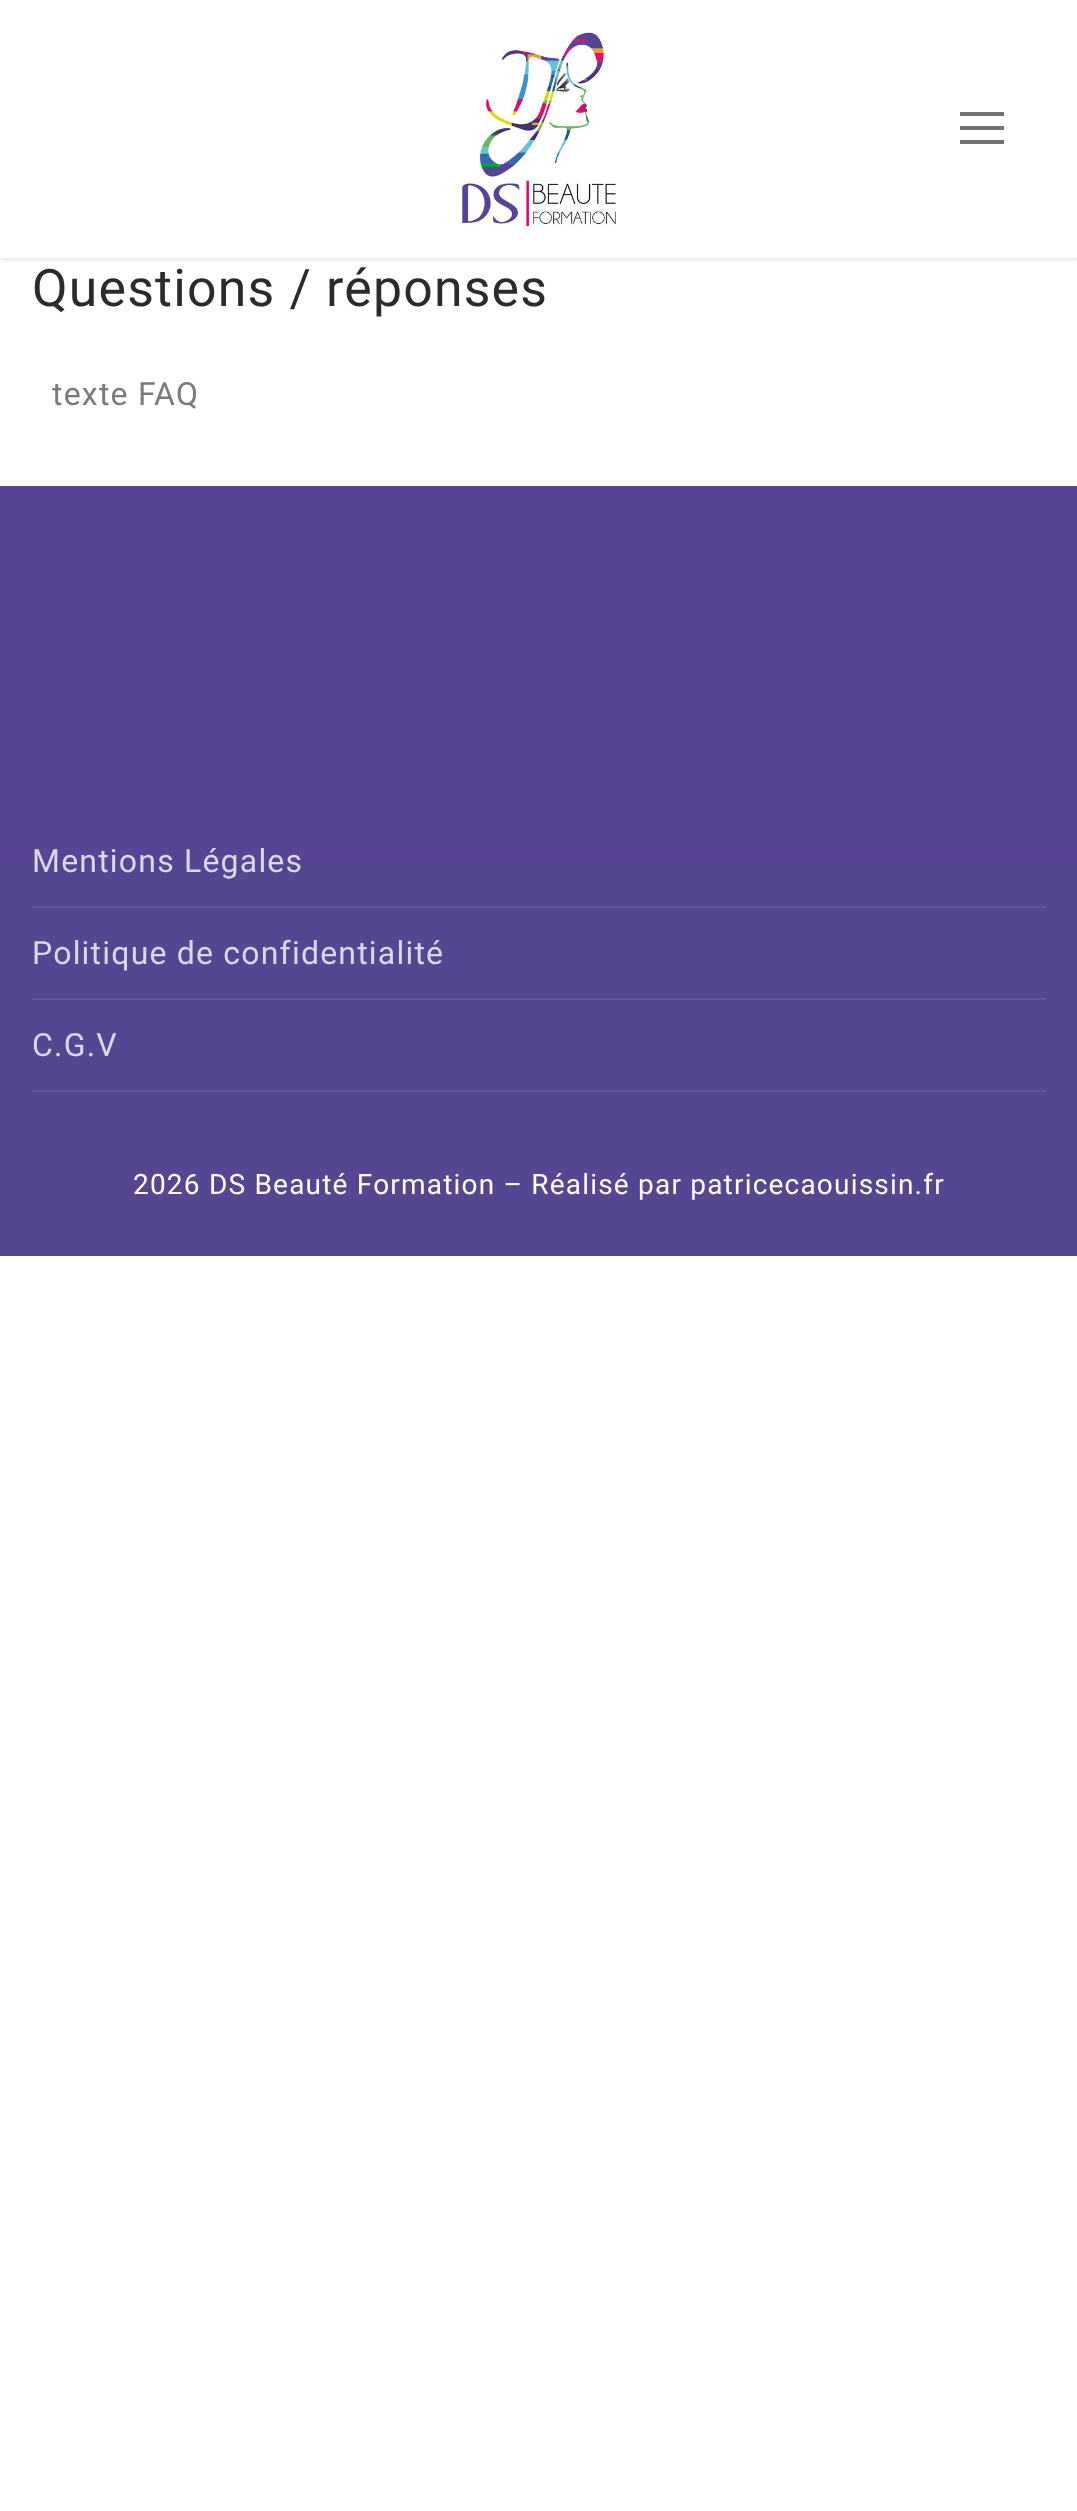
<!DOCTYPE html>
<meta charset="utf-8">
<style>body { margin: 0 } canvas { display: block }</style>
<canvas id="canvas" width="1077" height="2511"></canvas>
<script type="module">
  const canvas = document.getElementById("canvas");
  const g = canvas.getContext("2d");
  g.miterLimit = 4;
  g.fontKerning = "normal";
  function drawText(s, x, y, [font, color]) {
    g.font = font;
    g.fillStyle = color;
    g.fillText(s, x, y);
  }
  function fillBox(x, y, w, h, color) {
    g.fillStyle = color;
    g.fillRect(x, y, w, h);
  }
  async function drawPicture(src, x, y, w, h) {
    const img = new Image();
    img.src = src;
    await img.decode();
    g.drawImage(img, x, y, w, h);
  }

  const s1 = ["51.75px Roboto", "#2B2B2B"];
  const s2 = ["32px Roboto", "#7A7A7A"];
  const s3 = ["32px Roboto", "#DBD8E8"];
  const s4 = ["28px Roboto", "#FDFDFE"];

  fillBox(0, 0, 1077, 2511, "#FFFFFF");
  g.save();
  g.beginPath();
  g.rect(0, 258, 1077, 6);
  g.clip();
  g.fillStyle = "#E1E5EA";
  g.filter = "blur(2px)";
  g.beginPath();
  g.rect(0, 2, 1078, 258);
  g.fill();
  g.filter = "none";
  g.restore();
  await drawPicture("pic1.png", 462, 32, 154, 194);
  fillBox(960, 126, 44, 4, "#737373");
  fillBox(960, 112, 44, 4, "#737373");
  fillBox(960, 140, 44, 4, "#737373");
  g.letterSpacing = "1.2px";
  drawText("Questions / réponses", 32, 306, s1);
  drawText("texte FAQ", 52, 405, s2);
  fillBox(0, 486, 1077, 376, "#584495");
  fillBox(0, 862, 1077, 394, "#544691");
  fillBox(32, 906, 1014, 2, "#62559A");
  drawText("Mentions Légales", 32, 872, s3);
  fillBox(32, 998, 1014, 2, "#62559A");
  drawText("Politique de confidentialité", 32, 964, s3);
  fillBox(32, 1090, 1014, 2, "#62559A");
  drawText("C.G.V", 32, 1056, s3);
  drawText("2026 DS Beauté Formation – Réalisé par patricecaouissin.fr", 133, 1194, s4);
</script>
